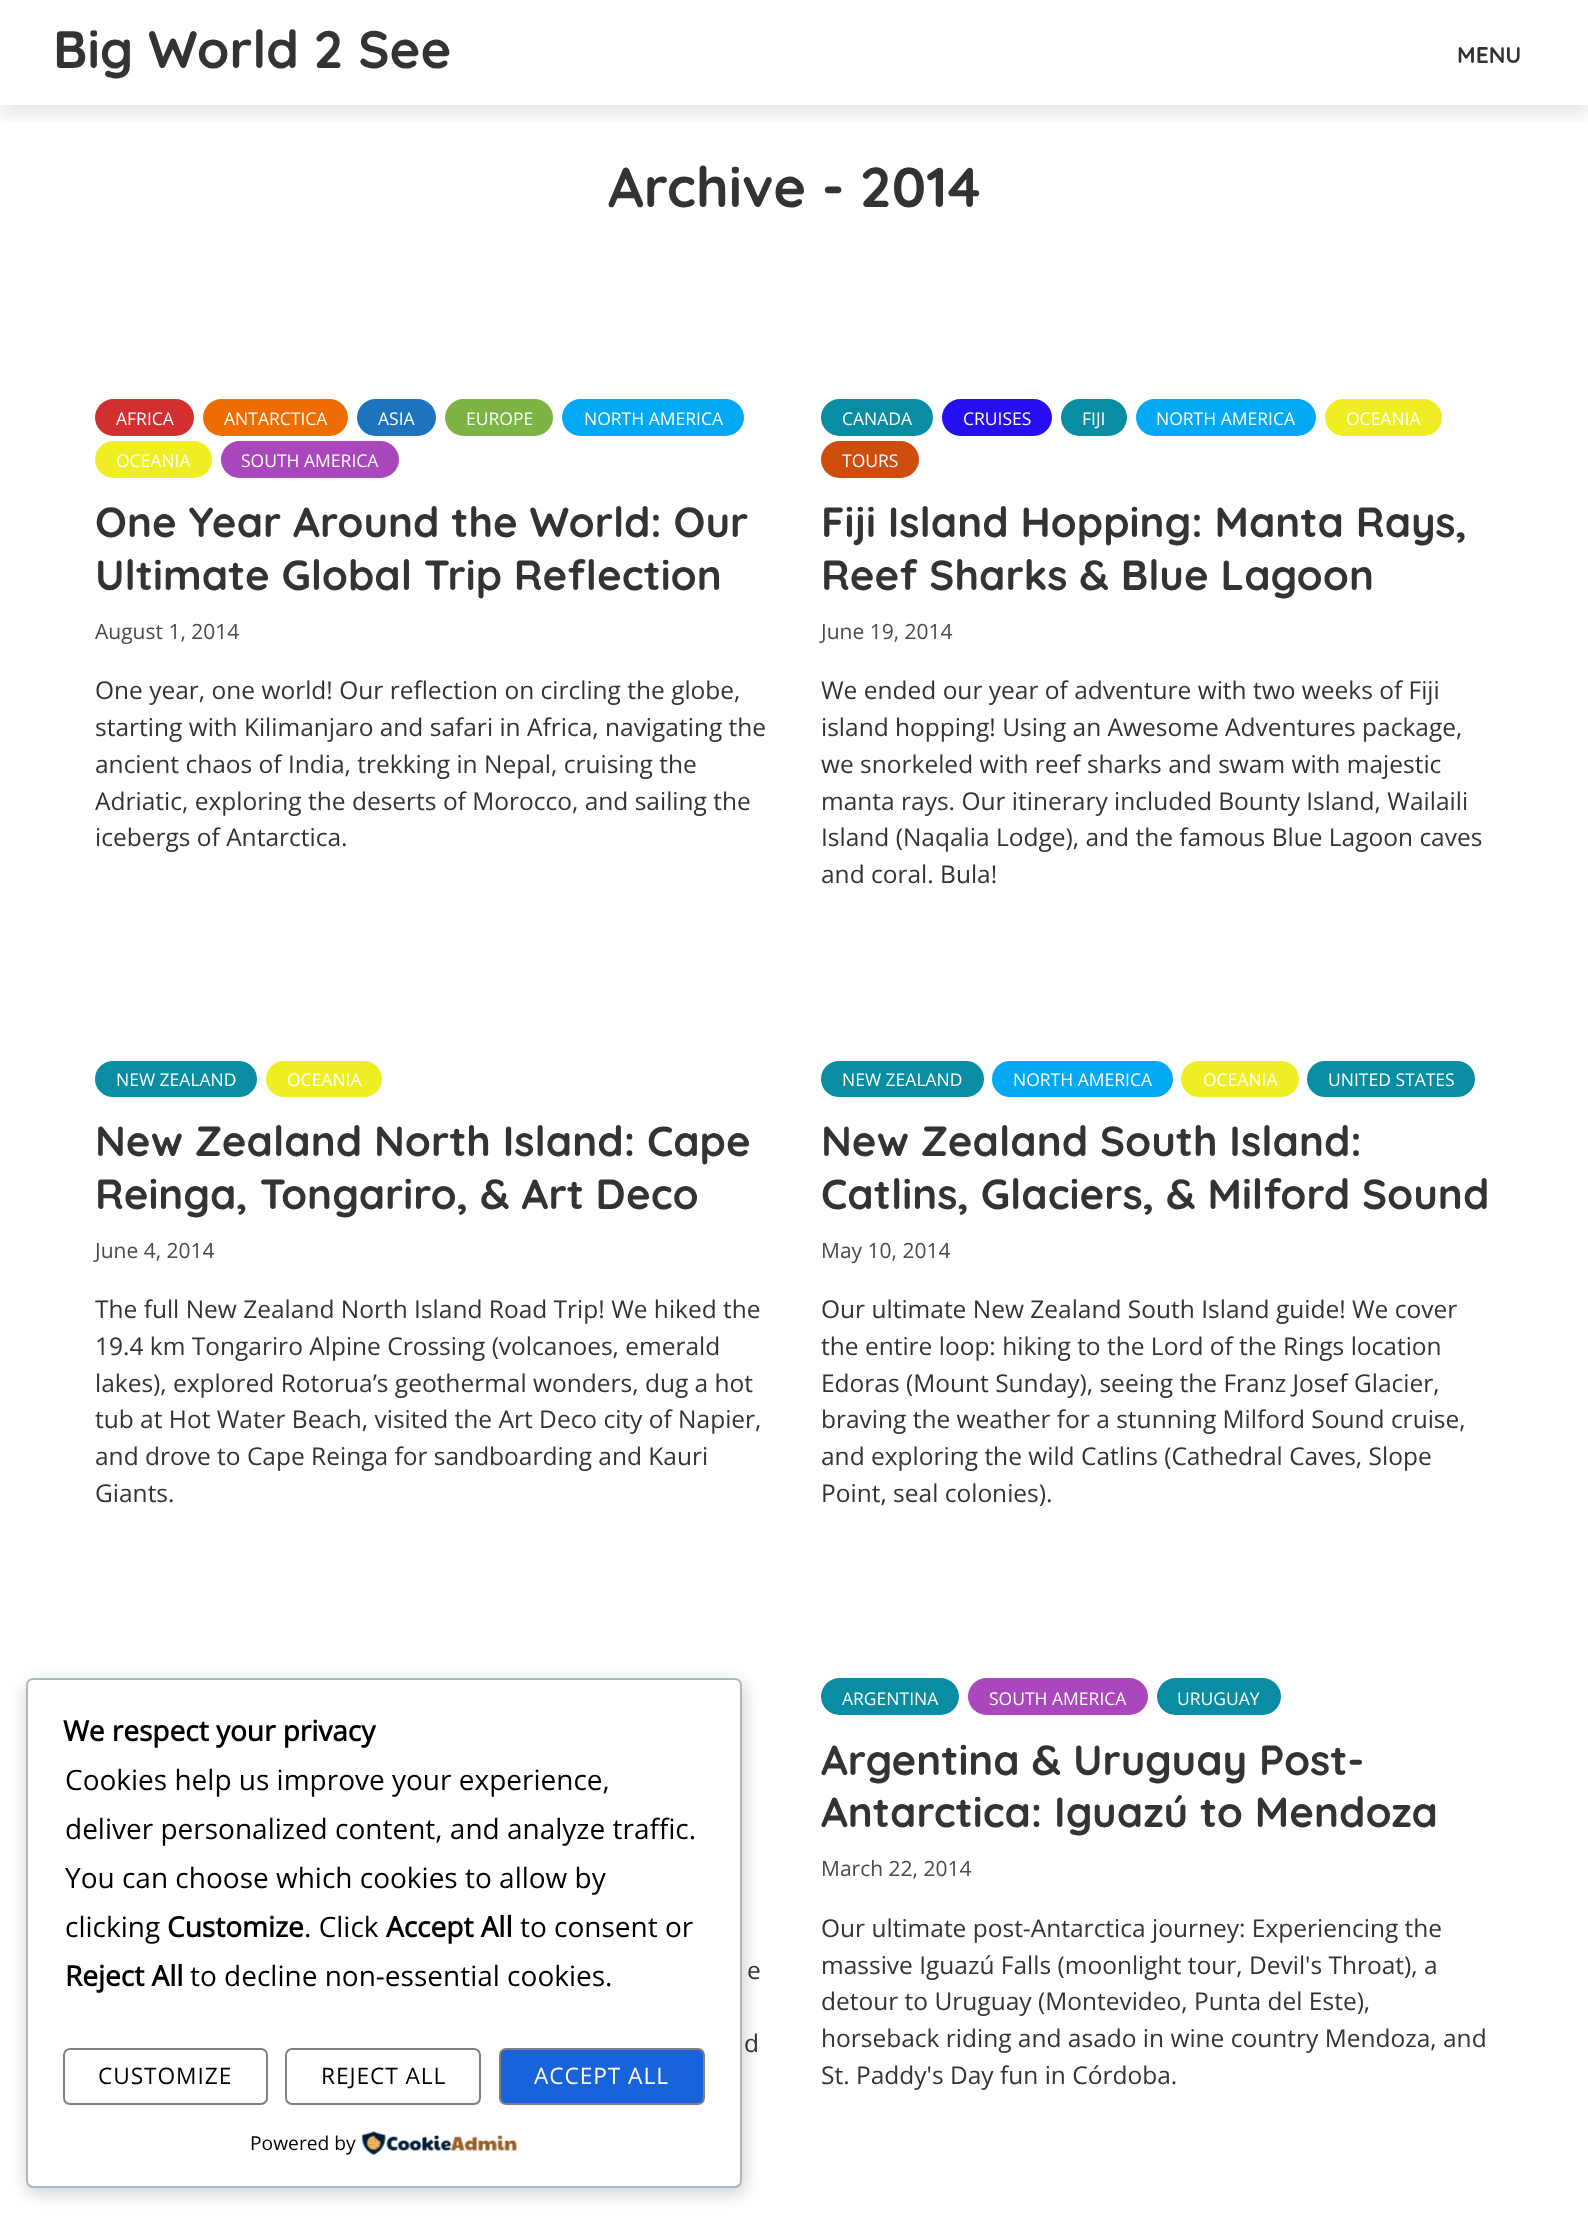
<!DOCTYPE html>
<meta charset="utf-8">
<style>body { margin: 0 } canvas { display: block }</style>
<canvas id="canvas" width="1588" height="2221"></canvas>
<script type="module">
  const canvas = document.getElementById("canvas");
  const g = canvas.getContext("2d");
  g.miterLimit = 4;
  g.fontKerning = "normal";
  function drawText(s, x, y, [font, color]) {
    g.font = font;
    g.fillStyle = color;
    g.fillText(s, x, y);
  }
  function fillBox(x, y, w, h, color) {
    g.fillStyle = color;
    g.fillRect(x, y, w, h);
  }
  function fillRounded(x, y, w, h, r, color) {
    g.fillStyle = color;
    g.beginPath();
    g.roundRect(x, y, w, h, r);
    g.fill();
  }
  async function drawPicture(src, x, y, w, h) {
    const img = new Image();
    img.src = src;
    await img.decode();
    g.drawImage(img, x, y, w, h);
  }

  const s1 = ["bold 52.5px Quicksand", "#333333"];
  const s2 = ["bold 22.75px Quicksand", "#333333"];
  const s3 = ["bold 56px Quicksand", "#333333"];
  const s4 = ["17.5px Open Sans", "#FFFFFF"];
  const s5 = ["bold 42px Quicksand", "#333333"];
  const s6 = ["21px Open Sans", "#4A4A4A"];
  const s7 = ["24.5px Open Sans", "#333333"];
  const s8 = ["bold 28px Open Sans", "#000000"];
  const s9 = ["28px Open Sans", "#000000"];
  const s10 = ["22.75px Open Sans", "#000000"];
  const s11 = ["22.75px Open Sans", "#FFFFFF"];
  const s12 = ["19.25px Open Sans", "#000000"];

  fillBox(0, 0, 1588, 2221, "#FFFFFF");
  g.save();
  g.beginPath();
  g.rect(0, 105, 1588, 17);
  g.clip();
  g.fillStyle = "rgba(0, 0, 0, 0.1)";
  g.filter = "blur(9px)";
  g.beginPath();
  g.rect(0, 9, 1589, 105);
  g.fill();
  g.filter = "none";
  g.restore();
  drawText("Big World 2 See", 53, 68, s1);
  drawText("MENU", 1457, 63, s2);
  drawText("Archive - 2014", 608, 207, s3);
  fillRounded(95, 399, 99, 37, 18.5, "#D32F2F");
  drawText("AFRICA", 116, 425, s4);
  fillRounded(203, 399, 145, 37, 18.5, "#EF6C00");
  drawText("ANTARCTICA", 224, 425, s4);
  fillRounded(357, 399, 79, 37, 18.5, "#1E73BE");
  drawText("ASIA", 378, 425, s4);
  fillRounded(445, 399, 108, 37, 18.5, "#7CB342");
  drawText("EUROPE", 466, 425, s4);
  fillRounded(562, 399, 182, 37, 18.5, "#03A9F4");
  drawText("NORTH AMERICA", 584, 425, s4);
  fillRounded(95, 441, 117, 37, 18.5, "#EEEE22");
  drawText("OCEANIA", 116, 467, s4);
  fillRounded(221, 441, 178, 37, 18.5, "#AB47BC");
  drawText("SOUTH AMERICA", 241, 467, s4);
  drawText("One Year Around the World: Our", 95, 537, s5);
  drawText("Ultimate Global Trip Reflection", 95, 590, s5);
  drawText("August 1, 2014", 95, 639, s6);
  drawText("One year, one world! Our reflection on circling the globe,", 95, 699, s7);
  drawText("starting with Kilimanjaro and safari in Africa, navigating the", 95, 736, s7);
  drawText("ancient chaos of India, trekking in Nepal, cruising the", 95, 773, s7);
  drawText("Adriatic, exploring the deserts of Morocco, and sailing the", 95, 810, s7);
  drawText("icebergs of Antarctica.", 95, 846, s7);
  fillRounded(821, 399, 112, 37, 18.5, "#098DA3");
  drawText("CANADA", 842, 425, s4);
  fillRounded(942, 399, 110, 37, 18.5, "#250EF2");
  drawText("CRUISES", 963, 425, s4);
  fillRounded(1061, 399, 66, 37, 18.5, "#098DA3");
  drawText("FIJI", 1082, 425, s4);
  fillRounded(1136, 399, 180, 37, 18.5, "#03A9F4");
  drawText("NORTH AMERICA", 1156, 425, s4);
  fillRounded(1325, 399, 117, 37, 18.5, "#EEEE22");
  drawText("OCEANIA", 1346, 425, s4);
  fillRounded(821, 441, 98, 37, 18.5, "#CE4D0C");
  drawText("TOURS", 842, 467, s4);
  drawText("Fiji Island Hopping: Manta Rays,", 821, 537, s5);
  drawText("Reef Sharks & Blue Lagoon", 821, 590, s5);
  drawText("June 19, 2014", 821, 639, s6);
  drawText("We ended our year of adventure with two weeks of Fiji", 821, 699, s7);
  drawText("island hopping! Using an Awesome Adventures package,", 821, 736, s7);
  drawText("we snorkeled with reef sharks and swam with majestic", 821, 773, s7);
  drawText("manta rays. Our itinerary included Bounty Island, Wailaili", 821, 810, s7);
  drawText("Island (Naqalia Lodge), and the famous Blue Lagoon caves", 821, 846, s7);
  drawText("and coral. Bula!", 821, 883, s7);
  fillRounded(95, 1061, 162, 36, 18, "#098DA3");
  drawText("NEW ZEALAND", 116, 1086, s4);
  fillRounded(266, 1061, 116, 36, 18, "#EEEE22");
  drawText("OCEANIA", 287, 1086, s4);
  drawText("New Zealand North Island: Cape", 95, 1156, s5);
  drawText("Reinga, Tongariro, & Art Deco", 95, 1209, s5);
  drawText("June 4, 2014", 95, 1258, s6);
  drawText("The full New Zealand North Island Road Trip! We hiked the", 95, 1318, s7);
  drawText("19.4 km Tongariro Alpine Crossing (volcanoes, emerald", 95, 1355, s7);
  drawText("lakes), explored Rotorua’s geothermal wonders, dug a hot", 95, 1392, s7);
  drawText("tub at Hot Water Beach, visited the Art Deco city of Napier,", 95, 1428, s7);
  drawText("and drove to Cape Reinga for sandboarding and Kauri", 95, 1465, s7);
  drawText("Giants.", 95, 1502, s7);
  fillRounded(821, 1061, 163, 36, 18, "#098DA3");
  drawText("NEW ZEALAND", 842, 1086, s4);
  fillRounded(992, 1061, 181, 36, 18, "#03A9F4");
  drawText("NORTH AMERICA", 1013, 1086, s4);
  fillRounded(1181, 1061, 118, 36, 18, "#EEEE22");
  drawText("OCEANIA", 1203, 1086, s4);
  fillRounded(1307, 1061, 168, 36, 18, "#098DA3");
  drawText("UNITED STATES", 1328, 1086, s4);
  drawText("New Zealand South Island:", 821, 1156, s5);
  drawText("Catlins, Glaciers, & Milford Sound", 821, 1209, s5);
  drawText("May 10, 2014", 821, 1258, s6);
  drawText("Our ultimate New Zealand South Island guide! We cover", 821, 1318, s7);
  drawText("the entire loop: hiking to the Lord of the Rings location", 821, 1355, s7);
  drawText("Edoras (Mount Sunday), seeing the Franz Josef Glacier,", 821, 1392, s7);
  drawText("braving the weather for a stunning Milford Sound cruise,", 821, 1428, s7);
  drawText("and exploring the wild Catlins (Cathedral Caves, Slope", 821, 1465, s7);
  drawText("Point, seal colonies).", 821, 1502, s7);
  drawText("e", 747, 1979, s7);
  drawText("d", 744, 2052, s7);
  fillRounded(821, 1678, 138, 37, 18.5, "#098DA3");
  drawText("ARGENTINA", 842, 1705, s4);
  fillRounded(968, 1678, 180, 37, 18.5, "#AB47BC");
  drawText("SOUTH AMERICA", 989, 1705, s4);
  fillRounded(1157, 1678, 124, 37, 18.5, "#098DA3");
  drawText("URUGUAY", 1177, 1705, s4);
  drawText("Argentina & Uruguay Post-", 821, 1775, s5);
  drawText("Antarctica: Iguazú to Mendoza", 821, 1827, s5);
  drawText("March 22, 2014", 821, 1876, s6);
  drawText("Our ultimate post-Antarctica journey: Experiencing the", 821, 1937, s7);
  drawText("massive Iguazú Falls (moonlight tour, Devil's Throat), a", 821, 1974, s7);
  drawText("detour to Uruguay (Montevideo, Punta del Este),", 821, 2010, s7);
  drawText("horseback riding and asado in wine country Mendoza, and", 821, 2047, s7);
  drawText("St. Paddy's Day fun in Córdoba.", 821, 2084, s7);
  g.fillStyle = "rgba(0, 0, 0, 0.2)";
  g.filter = "blur(9px)";
  g.beginPath();
  g.roundRect(28, 1684, 716, 509, 7);
  g.fill();
  g.filter = "none";
  g.fillStyle = "#FFFFFF";
  g.beginPath();
  g.roundRect(27, 1679, 714, 508, 6);
  g.fill();
  g.strokeStyle = "#ABB8C3";
  g.lineWidth = 2;
  g.stroke();
  drawText("We respect your privacy", 63, 1741, s8);
  drawText("Cookies help us improve your experience,", 65, 1790, s9);
  drawText("deliver personalized content, and analyze traffic.", 65, 1839, s9);
  drawText("You can choose which cookies to allow by", 65, 1888, s9);
  drawText("clicking", 65, 1937, s9);
  drawText("Customize", 167, 1937, s8);
  drawText(". Click", 304, 1937, s9);
  drawText("Accept All", 386, 1937, s8);
  drawText("to consent or", 520, 1937, s9);
  drawText("Reject All", 65, 1986, s8);
  drawText("to decline non-essential cookies.", 190, 1986, s9);
  g.beginPath();
  g.roundRect(64, 2049, 203, 55, 6);
  g.strokeStyle = "#808080";
  g.stroke();
  g.letterSpacing = "0.9px";
  drawText("CUSTOMIZE", 98, 2084, s10);
  g.beginPath();
  g.roundRect(286, 2049, 194, 55, 6);
  g.stroke();
  drawText("REJECT ALL", 321, 2084, s10);
  g.fillStyle = "#1863DC";
  g.beginPath();
  g.roundRect(500, 2049, 204, 55, 6);
  g.fill();
  g.stroke();
  drawText("ACCEPT ALL", 534, 2084, s11);
  g.letterSpacing = "0px";
  drawText("Powered by", 250, 2150, s12);
  await drawPicture("pic1.png", 361, 2131, 156, 24);
</script>
